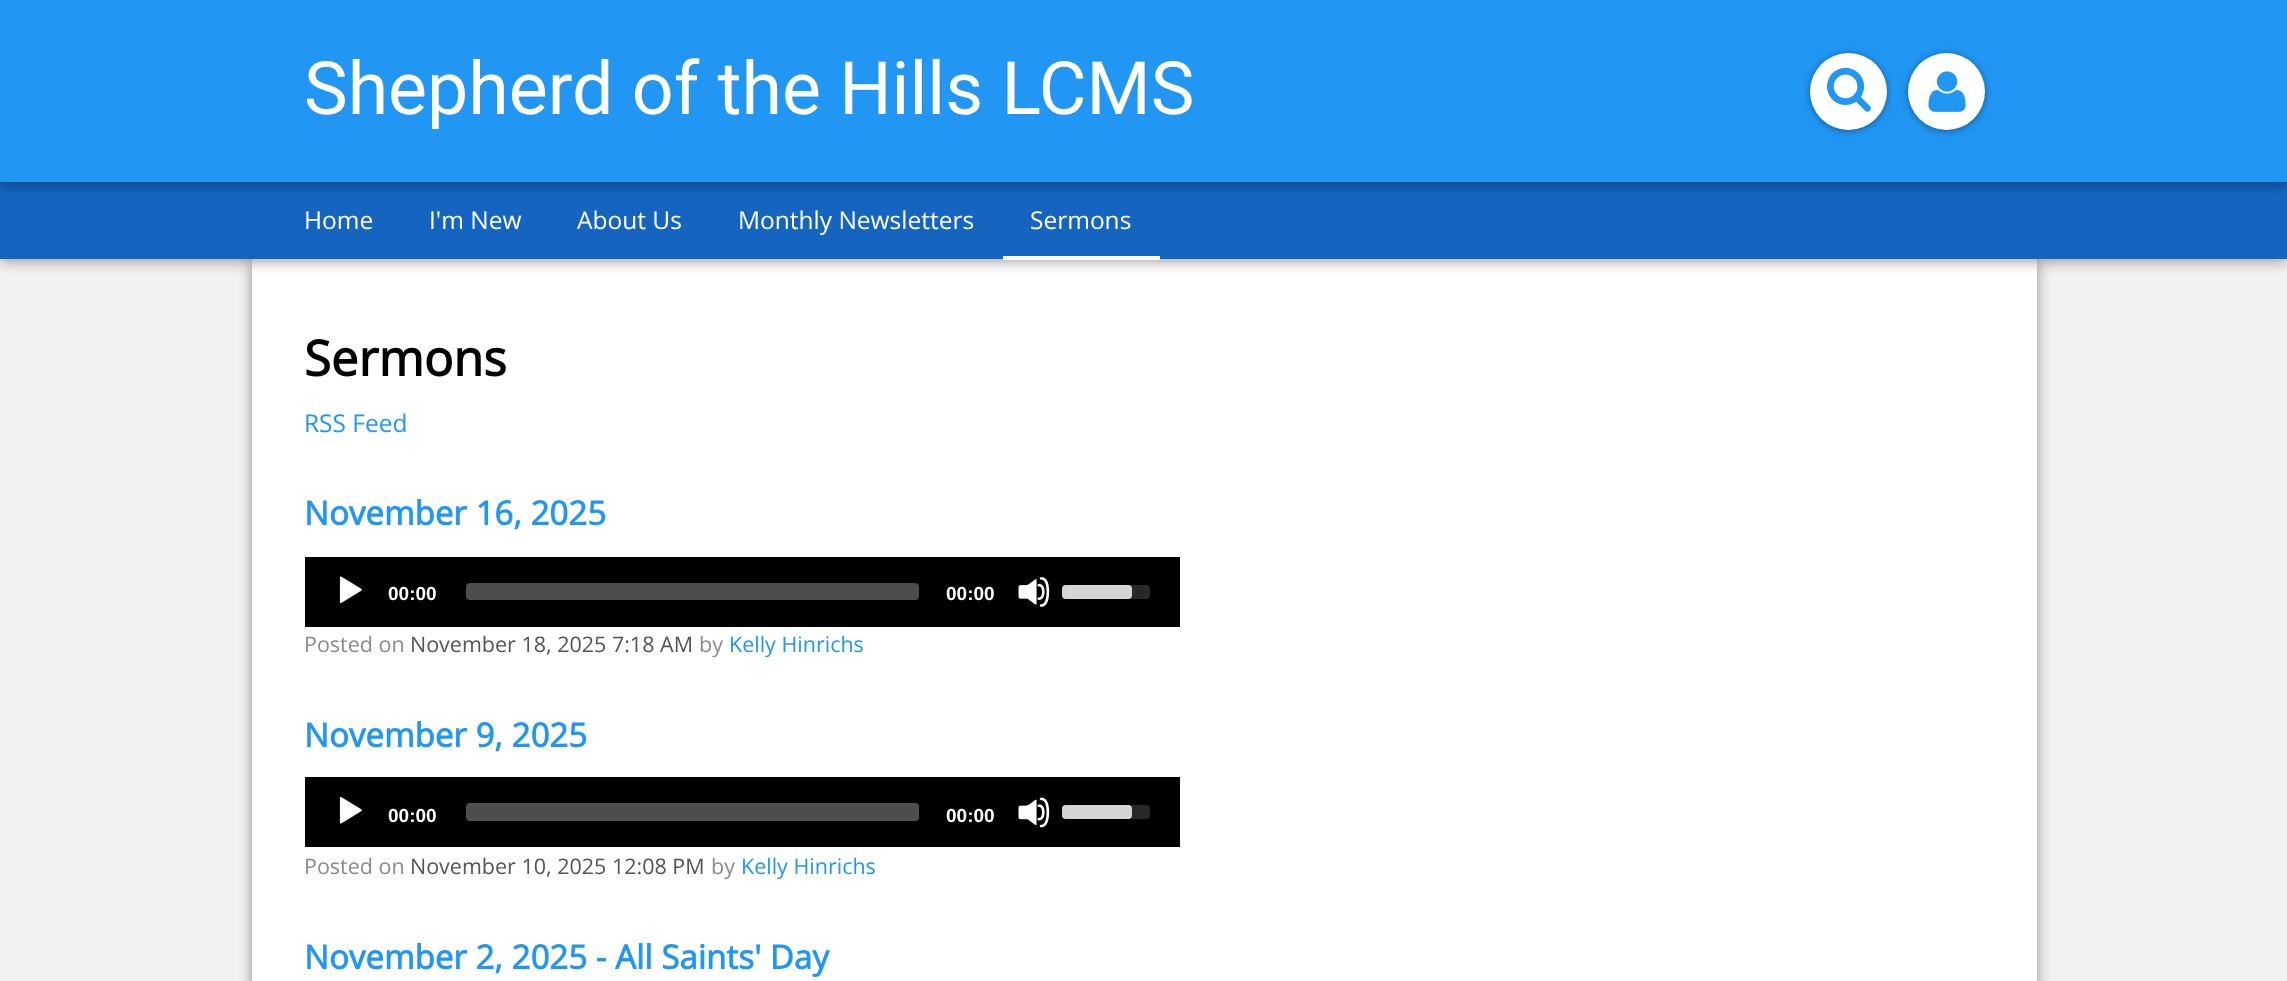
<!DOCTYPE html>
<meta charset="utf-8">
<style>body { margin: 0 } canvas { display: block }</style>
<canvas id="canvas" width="2287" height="981"></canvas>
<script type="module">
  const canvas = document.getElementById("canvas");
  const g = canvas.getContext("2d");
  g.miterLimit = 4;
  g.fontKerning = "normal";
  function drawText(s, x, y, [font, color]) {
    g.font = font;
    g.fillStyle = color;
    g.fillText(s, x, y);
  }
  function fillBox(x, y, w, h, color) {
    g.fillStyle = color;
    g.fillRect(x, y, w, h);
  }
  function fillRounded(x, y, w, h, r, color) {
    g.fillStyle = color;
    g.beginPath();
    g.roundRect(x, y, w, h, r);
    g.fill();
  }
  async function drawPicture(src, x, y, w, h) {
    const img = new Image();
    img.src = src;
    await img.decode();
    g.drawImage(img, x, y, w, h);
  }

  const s1 = ["73.5px Roboto", "#FFFFFF"];
  const s2 = ["24.5px Open Sans", "#FFFFFF"];
  const s3 = ["bold 49px Open Sans", "#000000"];
  const s4 = ["24.5px Open Sans", "#2196F3"];
  const s5 = ["bold 33.1px Open Sans", "#2196F3"];
  const s6 = ["bold 19px Liberation Sans", "#FFFFFF"];
  const s7 = ["21.5px Open Sans", "#8B8B8B"];
  const s8 = ["21.5px Open Sans", "#555555"];
  const s9 = ["21.5px Open Sans", "#2196F3"];

  fillBox(0, 0, 2287, 981, "#F2F2F2");
  g.fillStyle = "rgba(0, 0, 0, 0.4)";
  g.filter = "blur(7px)";
  g.beginPath();
  g.rect(252, 261, 1785, 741);
  g.fill();
  g.filter = "none";
  fillBox(252, 259, 1785, 722, "#FFFFFF");
  g.fillStyle = "rgba(0, 0, 0, 0.4)";
  g.filter = "blur(7px)";
  g.beginPath();
  g.rect(0, 184, 2287, 77);
  g.fill();
  g.filter = "none";
  fillBox(0, 182, 2287, 77, "#1565C0");
  g.fillStyle = "rgba(0, 0, 0, 0.4)";
  g.filter = "blur(7px)";
  g.beginPath();
  g.rect(0, 2, 2287, 182);
  g.fill();
  g.filter = "none";
  fillBox(0, 0, 2287, 182, "#2196F3");
  drawText("Shepherd of the Hills LCMS", 304, 114, s1);
  g.fillStyle = "rgba(0, 0, 0, 0.4)";
  g.filter = "blur(3.5px)";
  g.beginPath();
  g.roundRect(1810, 54, 77, 77, 38.5);
  g.fill();
  g.filter = "none";
  g.fillStyle = "#FFFFFF";
  g.beginPath();
  g.arc(1848.5, 91.5, 38.5, 0, Math.PI * 2);
  g.fill();
  await drawPicture("pic1.png", 1827, 67, 44, 45);
  g.fillStyle = "rgba(0, 0, 0, 0.4)";
  g.filter = "blur(3.5px)";
  g.beginPath();
  g.roundRect(1908, 54, 77, 77, 38.5);
  g.fill();
  g.filter = "none";
  g.fillStyle = "#FFFFFF";
  g.beginPath();
  g.arc(1946.5, 91.5, 38.5, 0, Math.PI * 2);
  g.fill();
  await drawPicture("pic2.png", 1928, 71, 38, 41);
  drawText("Home", 304, 229, s2);
  drawText("I'm New", 429, 229, s2);
  drawText("About Us", 577, 229, s2);
  drawText("Monthly Newsletters", 738, 229, s2);
  fillBox(1003, 256, 157, 4, "#FFFFFF");
  drawText("Sermons", 1030, 229, s2);
  drawText("Sermons", 304, 376, s3);
  drawText("RSS Feed", 304, 432, s4);
  drawText("November 16, 2025", 304, 525, s5);
  fillBox(305, 557, 875, 70, "#000000");
  await drawPicture("pic3.png", 339, 576, 23, 28);
  drawText("00:00", 388, 600, s6);
  fillRounded(466, 583, 453, 17, 4, "#4D4D4D");
  drawText("00:00", 946, 600, s6);
  await drawPicture("pic4.png", 1018, 577, 32, 30);
  fillRounded(1062, 585, 88, 14, 4, "#282828");
  fillRounded(1062, 585, 70, 14, 4, "rgba(255, 255, 255, 0.8)");
  drawText("Posted on", 304, 652, s7);
  drawText("November 18, 2025 7:18 AM", 410, 652, s8);
  drawText("by", 699, 652, s7);
  drawText("Kelly Hinrichs", 729, 652, s9);
  drawText("November 9, 2025", 304, 747, s5);
  fillBox(305, 777, 875, 70, "#000000");
  await drawPicture("pic5.png", 339, 797, 23, 27);
  drawText("00:00", 388, 822, s6);
  fillRounded(466, 803, 453, 18, 4, "#4D4D4D");
  drawText("00:00", 946, 822, s6);
  await drawPicture("pic6.png", 1018, 797, 32, 31);
  fillRounded(1062, 805, 88, 14, 4, "#282828");
  fillRounded(1062, 805, 70, 14, 4, "rgba(255, 255, 255, 0.8)");
  drawText("Posted on", 304, 874, s7);
  drawText("November 10, 2025 12:08 PM", 410, 874, s8);
  drawText("by", 711, 874, s7);
  drawText("Kelly Hinrichs", 741, 874, s9);
  drawText("November 2, 2025 - All Saints' Day", 304, 969, s5);
</script>
